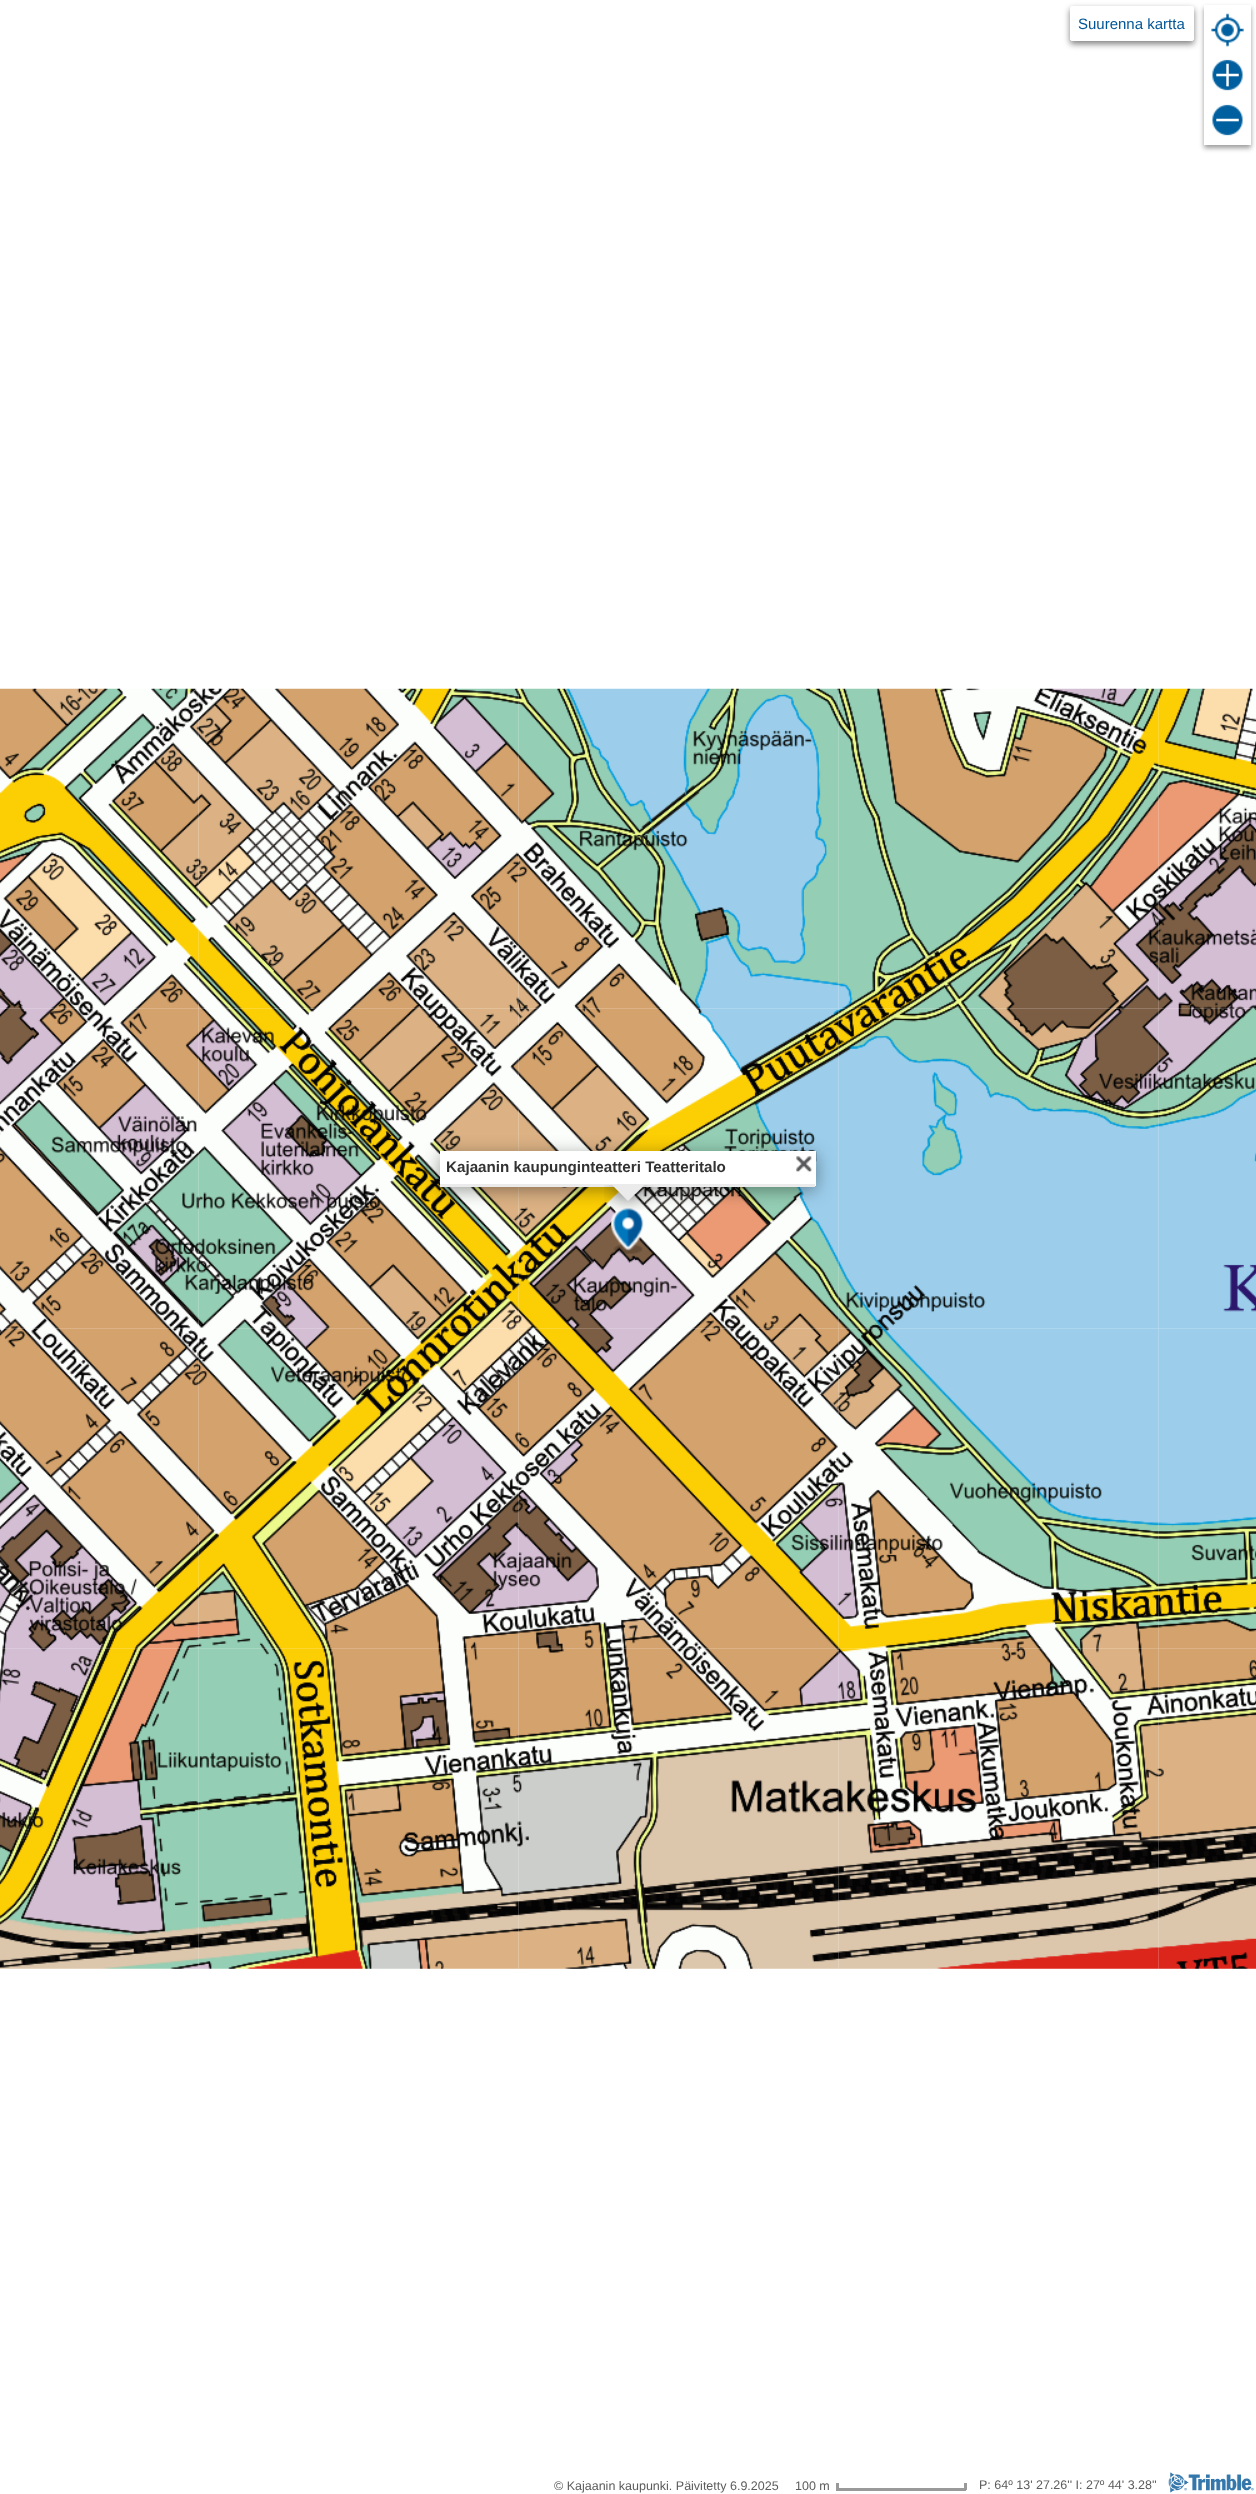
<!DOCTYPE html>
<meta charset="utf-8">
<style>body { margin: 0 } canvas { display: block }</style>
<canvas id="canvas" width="1256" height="2494"></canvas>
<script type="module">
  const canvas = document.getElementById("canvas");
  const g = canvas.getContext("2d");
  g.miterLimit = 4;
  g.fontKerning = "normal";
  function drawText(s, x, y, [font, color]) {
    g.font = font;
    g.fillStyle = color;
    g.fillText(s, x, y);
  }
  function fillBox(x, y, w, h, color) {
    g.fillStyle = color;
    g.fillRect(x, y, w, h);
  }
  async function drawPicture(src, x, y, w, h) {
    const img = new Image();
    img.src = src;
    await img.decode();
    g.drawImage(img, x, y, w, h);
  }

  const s1 = ["15px Liberation Sans", "#005596"];
  const s2 = ["bold 15.2px Liberation Sans", "#333333"];
  const s3 = ["12.5px Liberation Sans", "#5C5C5C"];

  fillBox(0, 0, 1256, 2494, "#FFFFFF");
  g.save();
  g.beginPath();
  g.moveTo(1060, 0);
  g.lineTo(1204, 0);
  g.lineTo(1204, 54);
  g.lineTo(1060, 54);
  g.closePath();
  g.moveTo(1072.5, 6);
  g.lineTo(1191.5, 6);
  g.bezierCurveTo(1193, 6, 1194, 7, 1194, 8.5);
  g.lineTo(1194, 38.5);
  g.bezierCurveTo(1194, 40, 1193, 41, 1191.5, 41);
  g.lineTo(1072.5, 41);
  g.bezierCurveTo(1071, 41, 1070, 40, 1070, 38.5);
  g.lineTo(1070, 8.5);
  g.bezierCurveTo(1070, 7, 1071, 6, 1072.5, 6);
  g.closePath();
  g.clip("evenodd");
  g.fillStyle = "rgba(0, 0, 0, 0.5)";
  g.filter = "blur(3px)";
  g.beginPath();
  g.roundRect(1070, 9, 124, 35, 2.5);
  g.fill();
  g.filter = "none";
  g.restore();
  g.beginPath();
  g.roundRect(1070.5, 6.5, 123, 34, 2);
  g.strokeStyle = "#FFFFFF";
  g.stroke();
  drawText("Suurenna kartta", 1078, 29, s1);
  g.save();
  g.beginPath();
  g.moveTo(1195, 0);
  g.lineTo(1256, 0);
  g.lineTo(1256, 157);
  g.lineTo(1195, 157);
  g.closePath();
  g.moveTo(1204, 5);
  g.lineTo(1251, 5);
  g.lineTo(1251, 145);
  g.lineTo(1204, 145);
  g.closePath();
  g.clip("evenodd");
  g.fillStyle = "rgba(0, 0, 0, 0.4)";
  g.filter = "blur(2.5px)";
  g.beginPath();
  g.rect(1204, 8, 47, 140);
  g.fill();
  g.filter = "none";
  g.restore();
  await drawPicture("pic1.png", 1211, 13, 33, 34);
  await drawPicture("pic2.png", 1212, 59, 31, 32);
  await drawPicture("pic3.png", 1212, 104, 31, 32);
  await drawPicture("pic11.png", 518, 1008, 321, 321);
  await drawPicture("pic16.png", 518, 1328, 321, 321);
  await drawPicture("pic10.png", 198, 1008, 321, 321);
  await drawPicture("pic12.png", 838, 1008, 321, 321);
  await drawPicture("pic6.png", 518, 688, 321, 321);
  await drawPicture("pic5.png", 198, 688, 321, 321);
  await drawPicture("pic15.png", 198, 1328, 321, 321);
  await drawPicture("pic9.png", 0, 1008, 199, 321);
  await drawPicture("pic4.png", 0, 688, 199, 321);
  await drawPicture("pic7.png", 838, 688, 321, 321);
  await drawPicture("pic17.png", 838, 1328, 321, 321);
  await drawPicture("pic13.png", 1158, 1008, 98, 321);
  await drawPicture("pic8.png", 1158, 688, 98, 321);
  await drawPicture("pic21.png", 518, 1648, 321, 321);
  await drawPicture("pic20.png", 198, 1648, 321, 321);
  await drawPicture("pic14.png", 0, 1328, 199, 321);
  await drawPicture("pic22.png", 838, 1648, 321, 321);
  await drawPicture("pic18.png", 1158, 1328, 98, 321);
  await drawPicture("pic19.png", 0, 1648, 199, 321);
  await drawPicture("pic23.png", 1158, 1648, 98, 321);
  await drawPicture("pic25.png", 611, 1208, 33, 46);
  g.fillStyle = "rgba(0, 0, 0, 0.4)";
  g.filter = "blur(9px)";
  g.beginPath();
  g.rect(440, 1155, 376, 35);
  g.fill();
  g.filter = "none";
  fillBox(440, 1151, 376, 35, "#FFFFFF");
  fillBox(440, 1184, 375, 3, "#EBEBEB");
  g.save();
  g.beginPath();
  g.rect(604, 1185, 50, 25);
  g.clip();
  g.fillStyle = "rgba(0, 0, 0, 0.4)";
  g.filter = "blur(9px)";
  g.beginPath();
  g.rect(616, 1176, 24, 24);
  g.fill();
  g.filter = "none";
  g.restore();
  g.save();
  g.beginPath();
  g.rect(604, 1185, 50, 25);
  g.clip();
  g.beginPath();
  g.moveTo(628, 1167.5);
  g.lineTo(645, 1184.5);
  g.lineTo(628, 1201);
  g.lineTo(611.5, 1184.5);
  g.closePath();
  g.fill();
  g.restore();
  drawText("Kajaanin kaupunginteatteri Teatteritalo", 446, 1172, s2);
  await drawPicture("pic24.png", 796, 1156, 16, 16);
  drawText("© Kajaanin kaupunki. Päivitetty 6.9.2025", 554, 2490, s3);
  drawText("100 m", 795, 2490, s3);
  fillBox(964, 2483, 3, 7, "#999999");
  fillBox(836, 2488, 130, 3, "#999999");
  fillBox(836, 2483, 3, 7, "#999999");
  drawText("P: 64º 13' 27.26'' I: 27º 44' 3.28''", 979, 2489, s3);
  await drawPicture("pic26.png", 1168, 2472, 86, 21);
</script>
